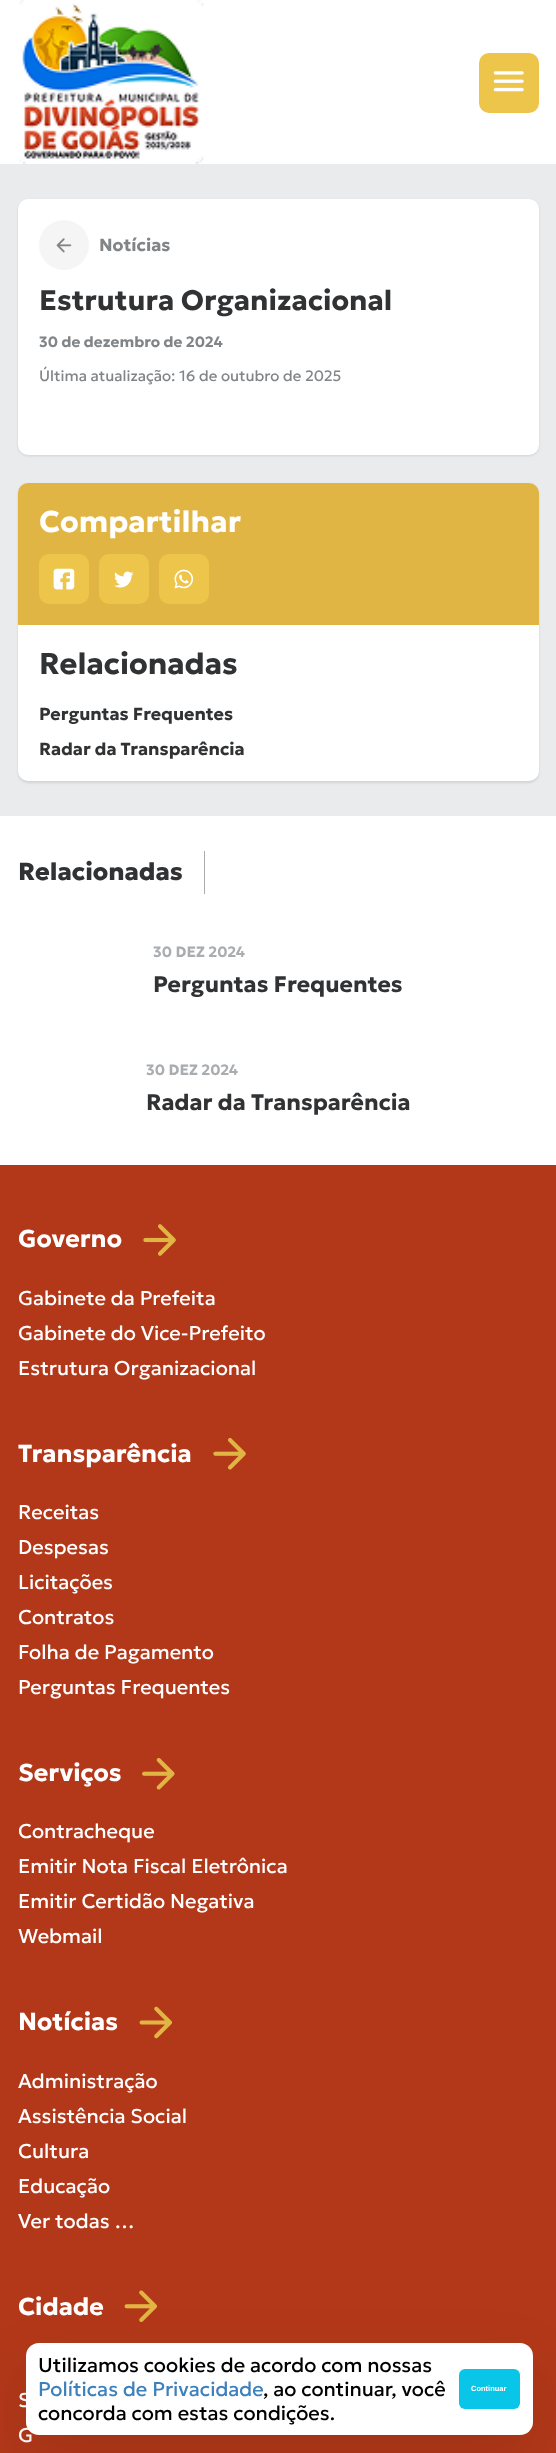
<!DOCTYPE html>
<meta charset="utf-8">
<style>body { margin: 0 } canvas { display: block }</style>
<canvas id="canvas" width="556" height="2453"></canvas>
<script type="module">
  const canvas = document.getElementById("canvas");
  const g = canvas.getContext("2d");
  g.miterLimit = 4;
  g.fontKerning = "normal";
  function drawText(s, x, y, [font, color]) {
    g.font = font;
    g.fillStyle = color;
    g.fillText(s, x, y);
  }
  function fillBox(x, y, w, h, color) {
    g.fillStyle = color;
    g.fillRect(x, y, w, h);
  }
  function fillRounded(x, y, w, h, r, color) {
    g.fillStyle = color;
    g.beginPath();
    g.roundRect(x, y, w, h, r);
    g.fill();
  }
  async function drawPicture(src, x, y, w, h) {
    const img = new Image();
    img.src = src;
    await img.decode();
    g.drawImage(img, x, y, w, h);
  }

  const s1 = ["bold 17.5px Geologica", "#828588"];
  const s2 = ["bold 28.2px Geologica", "#303234"];
  const s3 = ["bold 15px Geologica", "#828588"];
  const s4 = ["15px Geologica", "#828588"];
  const s5 = ["bold 30px Geologica", "#FFFFFF"];
  const s6 = ["bold 30px Geologica", "#303234"];
  const s7 = ["bold 17.5px Geologica", "#303234"];
  const s8 = ["800 24.5px Geologica", "#303234"];
  const s9 = ["bold 15px Geologica", "#AAADB0"];
  const s10 = ["bold 22.5px Geologica", "#303234"];
  const s11 = ["bold 24.5px Geologica", "#FFFFFF"];
  const s12 = ["20px Geologica", "#FFFFFF"];
  const s13 = ["20px Geologica", "#000000"];
  const s14 = ["20px Geologica", "#3C80BC"];
  const s15 = ["bold 7.5px Liberation Sans", "#FFFFFF"];

  fillBox(0, 0, 556, 2453, "#EAEBED");
  fillBox(0, 0, 556, 164, "#FFFFFF");
  await drawPicture("pic1.png", 19, 0, 185, 164);
  fillRounded(479, 53, 60, 60, 10, "#EDC54A");
  await drawPicture("pic2.png", 493, 71, 31, 21);
  g.fillStyle = "rgba(0, 0, 0, 0.1)";
  g.filter = "blur(1px)";
  g.beginPath();
  g.roundRect(18, 200, 521, 256, 10);
  g.fill();
  g.filter = "none";
  fillRounded(18, 199, 521, 256, 10, "#FFFFFF");
  g.fillStyle = "#F5F5F5";
  g.beginPath();
  g.arc(64, 245, 25, 0, Math.PI * 2);
  g.fill();
  await drawPicture("pic3.png", 56, 238, 16, 15);
  drawText("Notícias", 99, 251, s1);
  drawText("Estrutura Organizacional", 39, 310, s2);
  drawText("30 de dezembro de 2024", 39, 347, s3);
  drawText("Última atualização: 16 de outubro de 2025", 39, 381, s4);
  g.fillStyle = "rgba(0, 0, 0, 0.1)";
  g.filter = "blur(1px)";
  g.beginPath();
  g.roundRect(18, 484, 521, 299, 10);
  g.fill();
  g.filter = "none";
  g.fillStyle = "#E1B544";
  g.beginPath();
  g.roundRect(18, 483, 521, 142, [10, 10, 0, 0]);
  g.fill();
  drawText("Compartilhar", 39, 532, s5);
  fillRounded(39, 554, 50, 50, 10, "#EDC54A");
  await drawPicture("pic4.png", 53, 568, 22, 22);
  fillRounded(99, 554, 50, 50, 10, "#EDC54A");
  await drawPicture("pic5.png", 114, 571, 20, 17);
  fillRounded(159, 554, 50, 50, 10, "#EDC54A");
  await drawPicture("pic6.png", 174, 569, 20, 20);
  g.fillStyle = "#FFFFFF";
  g.beginPath();
  g.roundRect(18, 625, 521, 156, [0, 0, 10, 10]);
  g.fill();
  drawText("Relacionadas", 39, 674, s6);
  drawText("Perguntas Frequentes", 39, 720, s7);
  drawText("Radar da Transparência", 39, 755, s7);
  fillBox(0, 816, 556, 349, "#FFFFFF");
  drawText("Relacionadas", 18, 880, s8);
  fillBox(204, 851, 1, 43, "#AAADB0");
  drawText("30 DEZ 2024", 153, 957, s9);
  drawText("Perguntas Frequentes", 153, 992, s10);
  drawText("30 DEZ 2024", 146, 1075, s9);
  drawText("Radar da Transparência", 146, 1110, s10);
  fillBox(0, 1165, 556, 1288, "#B33819");
  drawText("Governo", 18, 1247, s11);
  await drawPicture("pic7.png", 143, 1224, 33, 32);
  drawText("Gabinete da Prefeita", 18, 1305, s12);
  drawText("Gabinete do Vice-Prefeito", 18, 1340, s12);
  drawText("Estrutura Organizacional", 18, 1375, s12);
  drawText("Transparência", 18, 1462, s11);
  await drawPicture("pic8.png", 213, 1438, 33, 32);
  drawText("Receitas", 18, 1519, s12);
  drawText("Despesas", 18, 1554, s12);
  drawText("Licitações", 18, 1589, s12);
  drawText("Contratos", 18, 1624, s12);
  drawText("Folha de Pagamento", 18, 1659, s12);
  drawText("Perguntas Frequentes", 18, 1694, s12);
  drawText("Serviços", 18, 1781, s11);
  await drawPicture("pic9.png", 142, 1758, 33, 32);
  drawText("Contracheque", 18, 1838, s12);
  drawText("Emitir Nota Fiscal Eletrônica", 18, 1873, s12);
  drawText("Emitir Certidão Negativa", 18, 1908, s12);
  drawText("Webmail", 18, 1943, s12);
  drawText("Notícias", 18, 2030, s11);
  await drawPicture("pic10.png", 139, 2006, 33, 33);
  drawText("Administração", 18, 2088, s12);
  drawText("Assistência Social", 18, 2123, s12);
  drawText("Cultura", 18, 2158, s12);
  drawText("Educação", 18, 2193, s12);
  drawText("Ver todas …", 18, 2228, s12);
  drawText("Cidade", 18, 2315, s11);
  await drawPicture("pic11.png", 124, 2290, 33, 32);
  drawText("S", 18, 2407, s12);
  drawText("G", 18, 2442, s12);
  g.fillStyle = "rgba(0, 0, 0, 0.1)";
  g.filter = "blur(31px)";
  g.beginPath();
  g.roundRect(26, 2368, 507, 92, 13);
  g.fill();
  g.filter = "none";
  fillRounded(26, 2343, 507, 92, 13, "#FFFFFF");
  drawText("Utilizamos cookies de acordo com nossas", 38, 2372, s13);
  drawText("Políticas de Privacidade", 38, 2396, s14);
  drawText(", ao continuar, você", 263, 2396, s13);
  drawText("concorda com estas condições.", 38, 2420, s13);
  fillRounded(459, 2369, 61, 40, 6, "#09C5E7");
  drawText("Continuar", 471, 2391, s15);
</script>
